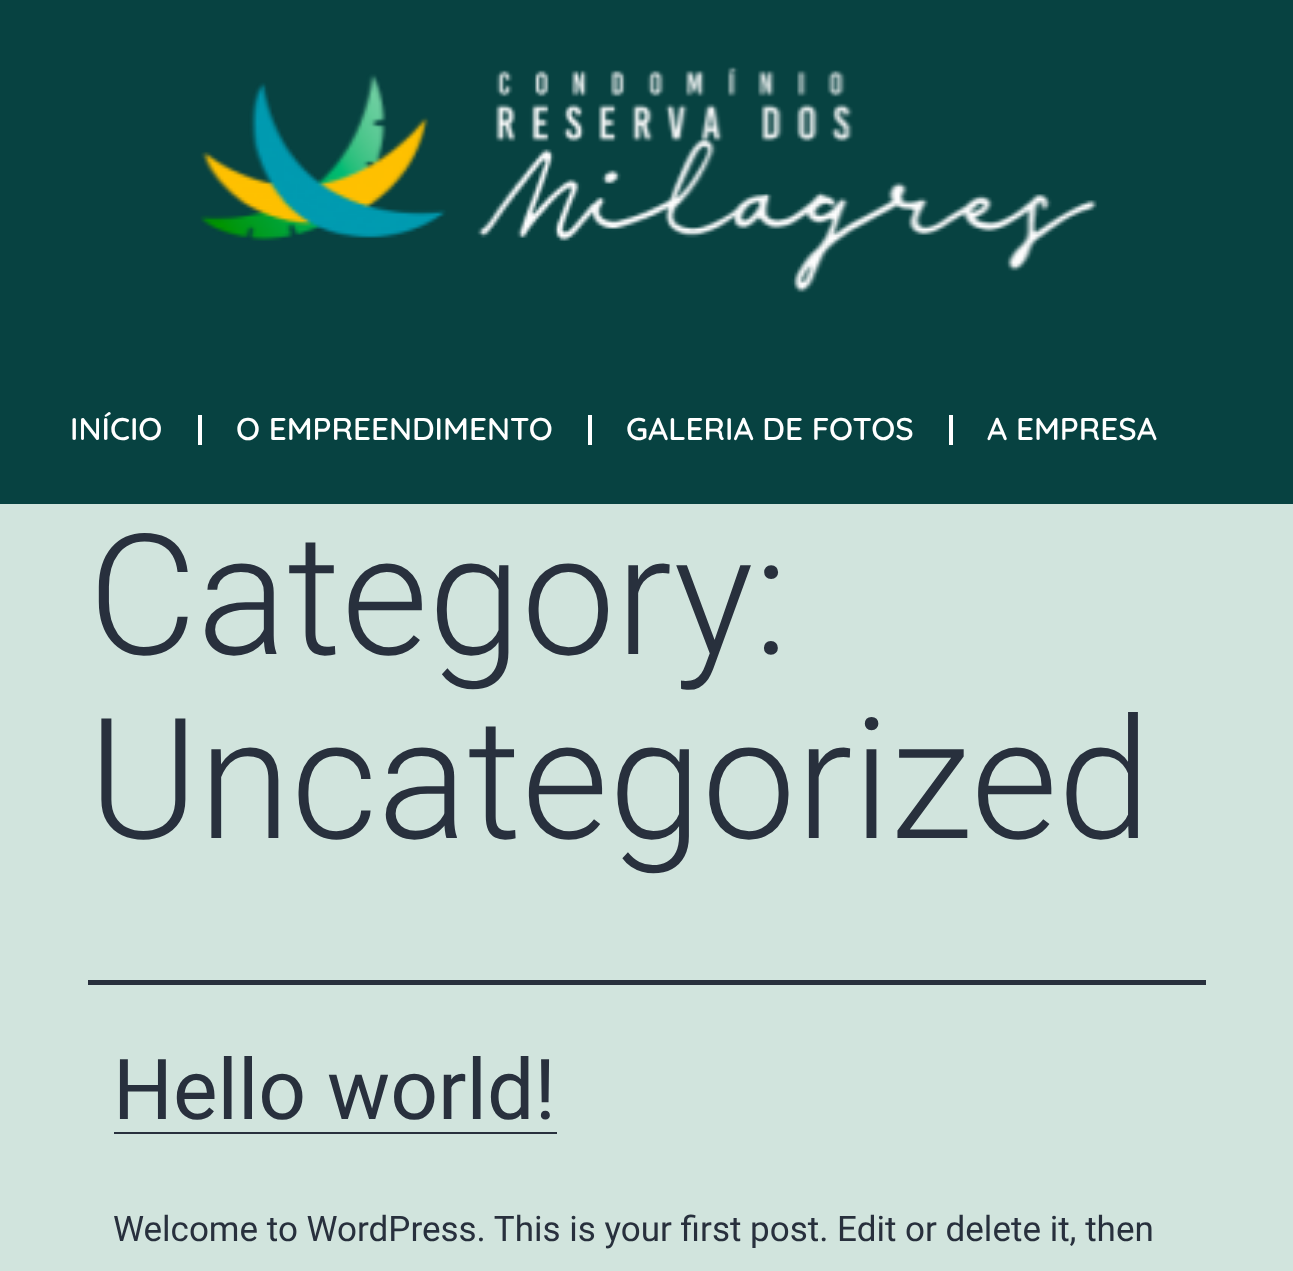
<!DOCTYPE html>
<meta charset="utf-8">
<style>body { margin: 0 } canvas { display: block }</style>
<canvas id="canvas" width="1293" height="1271"></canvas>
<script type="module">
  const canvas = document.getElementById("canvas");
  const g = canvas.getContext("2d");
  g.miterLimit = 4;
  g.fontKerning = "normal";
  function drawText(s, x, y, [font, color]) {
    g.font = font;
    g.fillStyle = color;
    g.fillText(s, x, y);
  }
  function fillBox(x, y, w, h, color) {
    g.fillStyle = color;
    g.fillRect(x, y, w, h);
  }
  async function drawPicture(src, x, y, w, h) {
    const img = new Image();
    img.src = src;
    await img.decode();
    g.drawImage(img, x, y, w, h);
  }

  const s1 = ["600 31.5px Quicksand", "#FFFFFF"];
  const s2 = ["300 168px Roboto", "#28303D"];
  const s3 = ["84px Roboto", "#28303D"];
  const s4 = ["35px Roboto", "#28303D"];

  fillBox(0, 0, 1293, 1271, "#D1E4DD");
  fillBox(0, 0, 1293, 504, "#074241");
  await drawPicture("pic1.png", 200, 66, 897, 227);
  drawText("INÍCIO", 70, 440, s1);
  fillBox(198, 415, 4, 30, "#FFFFFF");
  drawText("O EMPREENDIMENTO", 236, 440, s1);
  fillBox(588, 415, 4, 30, "#FFFFFF");
  drawText("GALERIA DE FOTOS", 626, 440, s1);
  fillBox(949, 415, 4, 30, "#FFFFFF");
  drawText("A EMPRESA", 987, 440, s1);
  fillBox(88, 980, 1118, 5, "#28303D");
  drawText("Category:", 88, 654, s2);
  drawText("Uncategorized", 88, 838, s2);
  drawText("Hello world!", 113, 1119, s3);
  fillBox(114, 1132, 443, 2, "#28303D");
  drawText("Welcome to WordPress. This is your first post. Edit or delete it, then", 113, 1241, s4);
</script>
